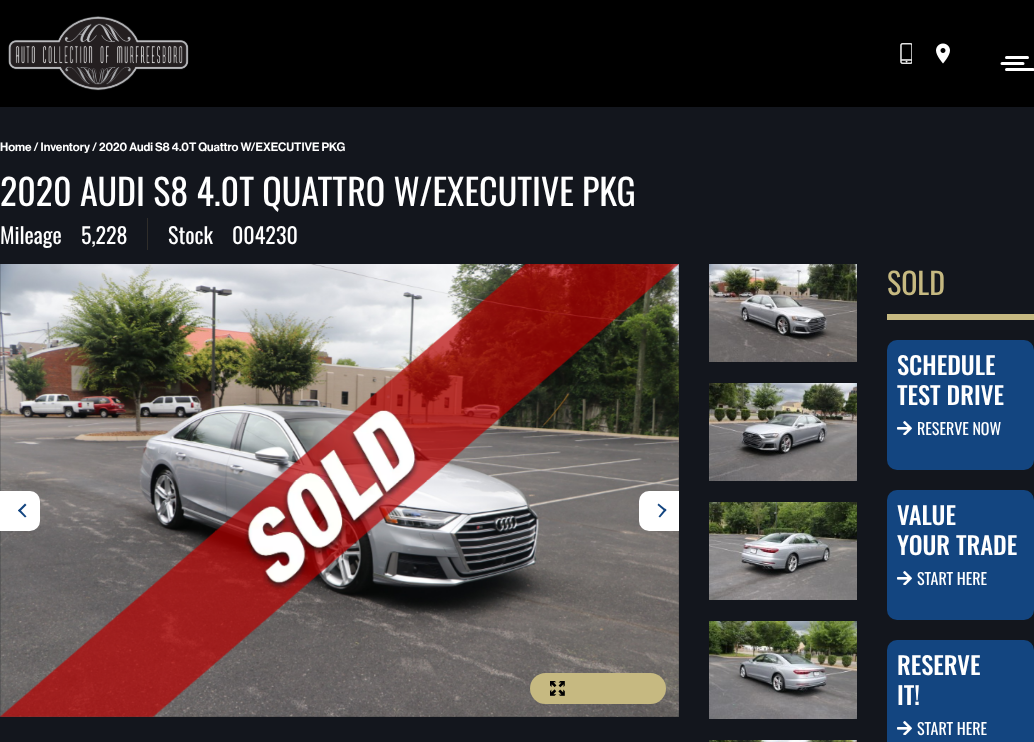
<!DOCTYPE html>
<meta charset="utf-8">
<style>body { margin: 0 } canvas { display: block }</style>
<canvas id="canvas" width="1034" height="742"></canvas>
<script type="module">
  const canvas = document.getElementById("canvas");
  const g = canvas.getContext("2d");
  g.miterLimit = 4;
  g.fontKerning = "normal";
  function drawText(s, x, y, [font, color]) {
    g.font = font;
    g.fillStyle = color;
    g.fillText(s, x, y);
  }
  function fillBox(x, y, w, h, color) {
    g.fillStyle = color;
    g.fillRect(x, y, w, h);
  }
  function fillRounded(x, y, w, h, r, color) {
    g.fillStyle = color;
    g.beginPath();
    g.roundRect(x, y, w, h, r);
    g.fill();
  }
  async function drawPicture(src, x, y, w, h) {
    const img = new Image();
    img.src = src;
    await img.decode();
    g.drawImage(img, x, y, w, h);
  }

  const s1 = ["600 12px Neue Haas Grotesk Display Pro", "#FFFFFF"];
  const s2 = ["36px Oswald", "#FFFFFF"];
  const s3 = ["22px Oswald", "#FFFFFF"];
  const s4 = ["30px Oswald", "#C6B981"];
  const s5 = ["500 24.5px Oswald", "#FFFFFF"];
  const s6 = ["16px Oswald", "#FFFFFF"];

  fillBox(0, 0, 1034, 742, "#13161D");
  fillBox(0, 0, 1034, 107, "#000000");
  await drawPicture("pic1.png", 8, 16, 181, 75);
  await drawPicture("pic2.png", 900, 43, 12, 21);
  await drawPicture("pic3.png", 936, 43, 14, 21);
  g.beginPath();
  g.moveTo(1027.5, 57.5);
  g.lineTo(1006.5, 57.5);
  g.moveTo(1023, 63.5);
  g.lineTo(1002, 63.5);
  g.moveTo(1033, 69.5);
  g.lineTo(1006.5, 69.5);
  g.strokeStyle = "#FFFFFF";
  g.lineWidth = 3;
  g.lineCap = "round";
  g.stroke();
  drawText("Home / Inventory / 2020 Audi S8 4.0T Quattro W/EXECUTIVE PKG", 0, 151, s1);
  drawText("2020 AUDI S8 4.0T QUATTRO W/EXECUTIVE PKG", 0, 206, s2);
  fillBox(147, 218, 1, 32, "#2F2D2A");
  drawText("Mileage", 0, 244, s3);
  drawText("5,228", 81, 244, s3);
  drawText("Stock", 168, 244, s3);
  drawText("004230", 232, 244, s3);
  await drawPicture("pic4.png", 0, 264, 679, 453);
  fillRounded(530, 673, 136, 31, 15.5, "#C6B981");
  await drawPicture("pic6.png", 550, 681, 15, 15);
  await drawPicture("pic5.png", 0, 264, 679, 453);
  await drawPicture("pic7.png", 678, 264, 1, 429);
  g.fillStyle = "#FFFFFF";
  g.beginPath();
  g.roundRect(0, 491, 40, 40, [0, 10, 10, 0]);
  g.fill();
  g.fillStyle = "#134580";
  g.beginPath();
  g.moveTo(25, 517.5);
  g.lineTo(18, 510.5);
  g.lineTo(19.5, 509);
  g.lineTo(26.5, 516.5);
  g.closePath();
  g.fill();
  g.beginPath();
  g.moveTo(19.5, 512);
  g.lineTo(18, 510.5);
  g.lineTo(25, 503.5);
  g.lineTo(26.5, 505);
  g.closePath();
  g.fill();
  g.fillStyle = "#FFFFFF";
  g.beginPath();
  g.roundRect(639, 491, 40, 40, [10, 0, 0, 10]);
  g.fill();
  g.fillStyle = "#134580";
  g.beginPath();
  g.moveTo(666.5, 510);
  g.lineTo(660, 517.5);
  g.lineTo(658.5, 516.5);
  g.lineTo(665, 508.5);
  g.closePath();
  g.fill();
  g.beginPath();
  g.moveTo(666.5, 510);
  g.lineTo(665, 511.5);
  g.lineTo(657.5, 505);
  g.lineTo(658.5, 503.5);
  g.closePath();
  g.fill();
  await drawPicture("pic8.png", 709, 264, 148, 98);
  await drawPicture("pic9.png", 709, 383, 148, 98);
  await drawPicture("pic10.png", 709, 502, 148, 98);
  await drawPicture("pic11.png", 709, 621, 148, 98);
  await drawPicture("pic12.png", 709, 740, 148, 2);
  drawText("SOLD", 887, 295, s4);
  fillBox(887, 314, 147, 6, "#C6B981");
  fillRounded(887, 340, 147, 130, 10, "#134580");
  drawText("SCHEDULE", 897, 375, s5);
  drawText("TEST DRIVE", 897, 405, s5);
  await drawPicture("pic13.png", 897, 421, 15, 14);
  drawText("RESERVE NOW", 917, 435, s6);
  fillRounded(887, 490, 147, 130, 10, "#134580");
  drawText("VALUE", 897, 525, s5);
  drawText("YOUR TRADE", 897, 555, s5);
  await drawPicture("pic13.png", 897, 571, 15, 14);
  drawText("START HERE", 917, 585, s6);
  fillRounded(887, 640, 147, 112, 10, "#134580");
  drawText("RESERVE", 897, 675, s5);
  drawText("IT!", 897, 705, s5);
  await drawPicture("pic13.png", 897, 721, 15, 14);
  drawText("START HERE", 917, 735, s6);
</script>
